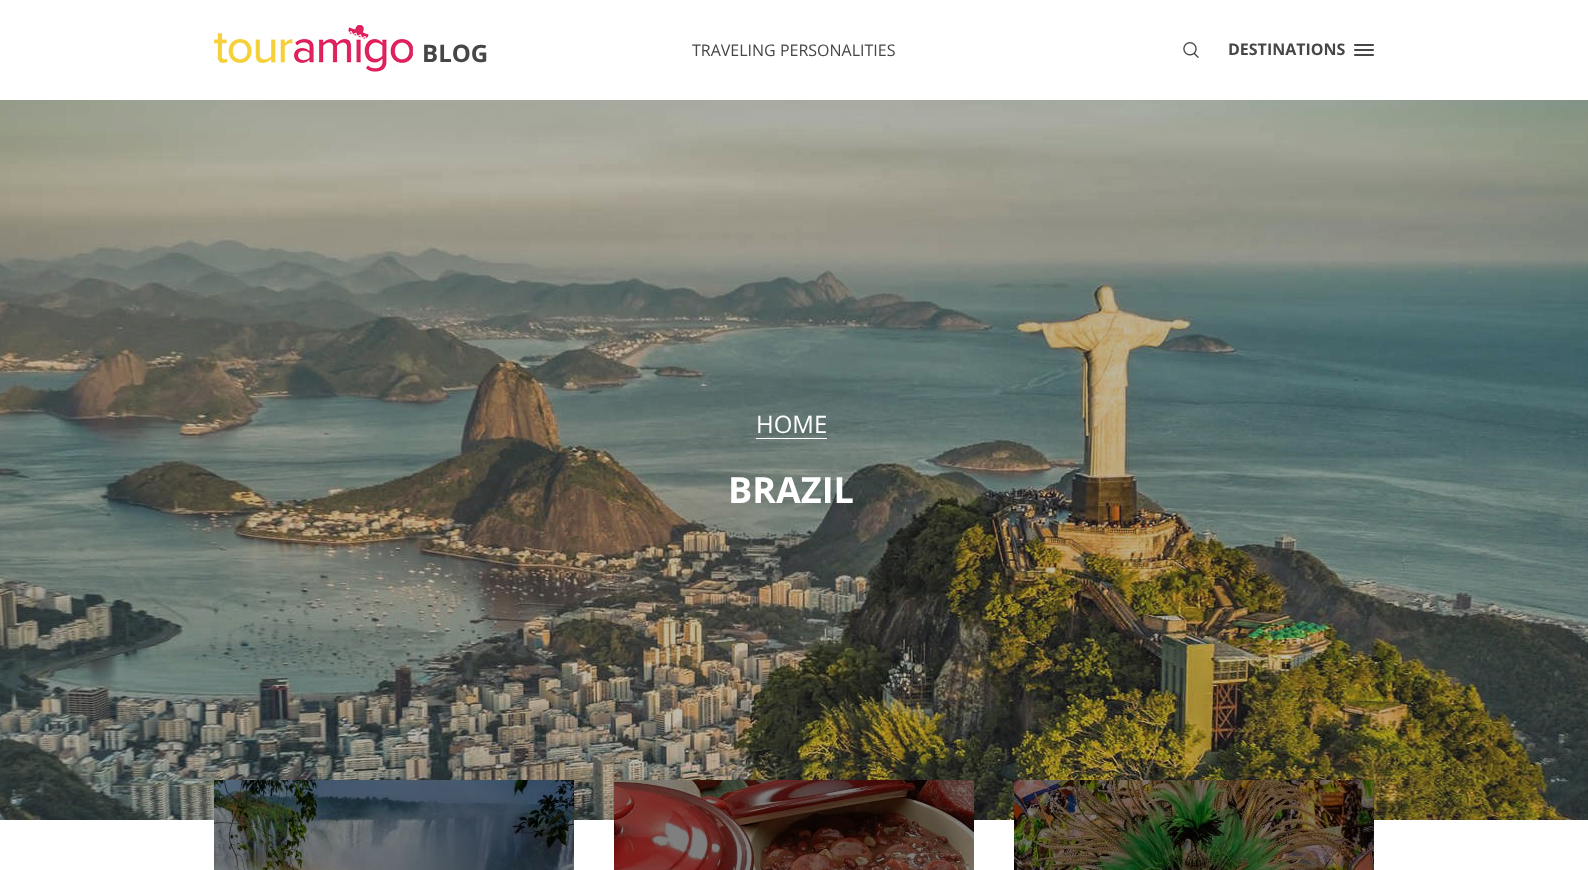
<!DOCTYPE html>
<meta charset="utf-8">
<style>body { margin: 0 } canvas { display: block }</style>
<canvas id="canvas" width="1588" height="870"></canvas>
<script type="module">
  const canvas = document.getElementById("canvas");
  const g = canvas.getContext("2d");
  g.miterLimit = 4;
  g.fontKerning = "normal";
  function drawText(s, x, y, [font, color]) {
    g.font = font;
    g.fillStyle = color;
    g.fillText(s, x, y);
  }
  function fillBox(x, y, w, h, color) {
    g.fillStyle = color;
    g.fillRect(x, y, w, h);
  }
  async function drawPicture(src, x, y, w, h) {
    const img = new Image();
    img.src = src;
    await img.decode();
    g.drawImage(img, x, y, w, h);
  }

  const s1 = ["bold 24px Open Sans", "#464646"];
  const s2 = ["16px Open Sans", "#464646"];
  const s3 = ["bold 16px Open Sans", "#464646"];
  const s4 = ["24px Open Sans", "#FFFFFF"];
  const s5 = ["bold 36px Open Sans", "#FFFFFF"];

  fillBox(0, 0, 1588, 870, "#FFFFFF");
  await drawPicture("pic1.png", 214, 25, 199, 47);
  drawText("BLOG", 422, 62, s1);
  drawText("TRAVELING PERSONALITIES", 692, 56, s2);
  await drawPicture("pic2.png", 1183, 42, 16, 16);
  drawText("DESTINATIONS", 1228, 55, s3);
  await drawPicture("pic3.png", 1354, 44, 20, 12);
  await drawPicture("pic4.png", 0, 100, 1588, 720);
  fillBox(756, 438, 71, 1, "#FFFFFF");
  drawText("HOME", 756, 433, s4);
  drawText("BRAZIL", 728, 503, s5);
  await drawPicture("pic5.png", 214, 780, 360, 90);
  await drawPicture("pic6.png", 614, 780, 360, 90);
  await drawPicture("pic7.png", 1014, 780, 360, 90);
</script>
